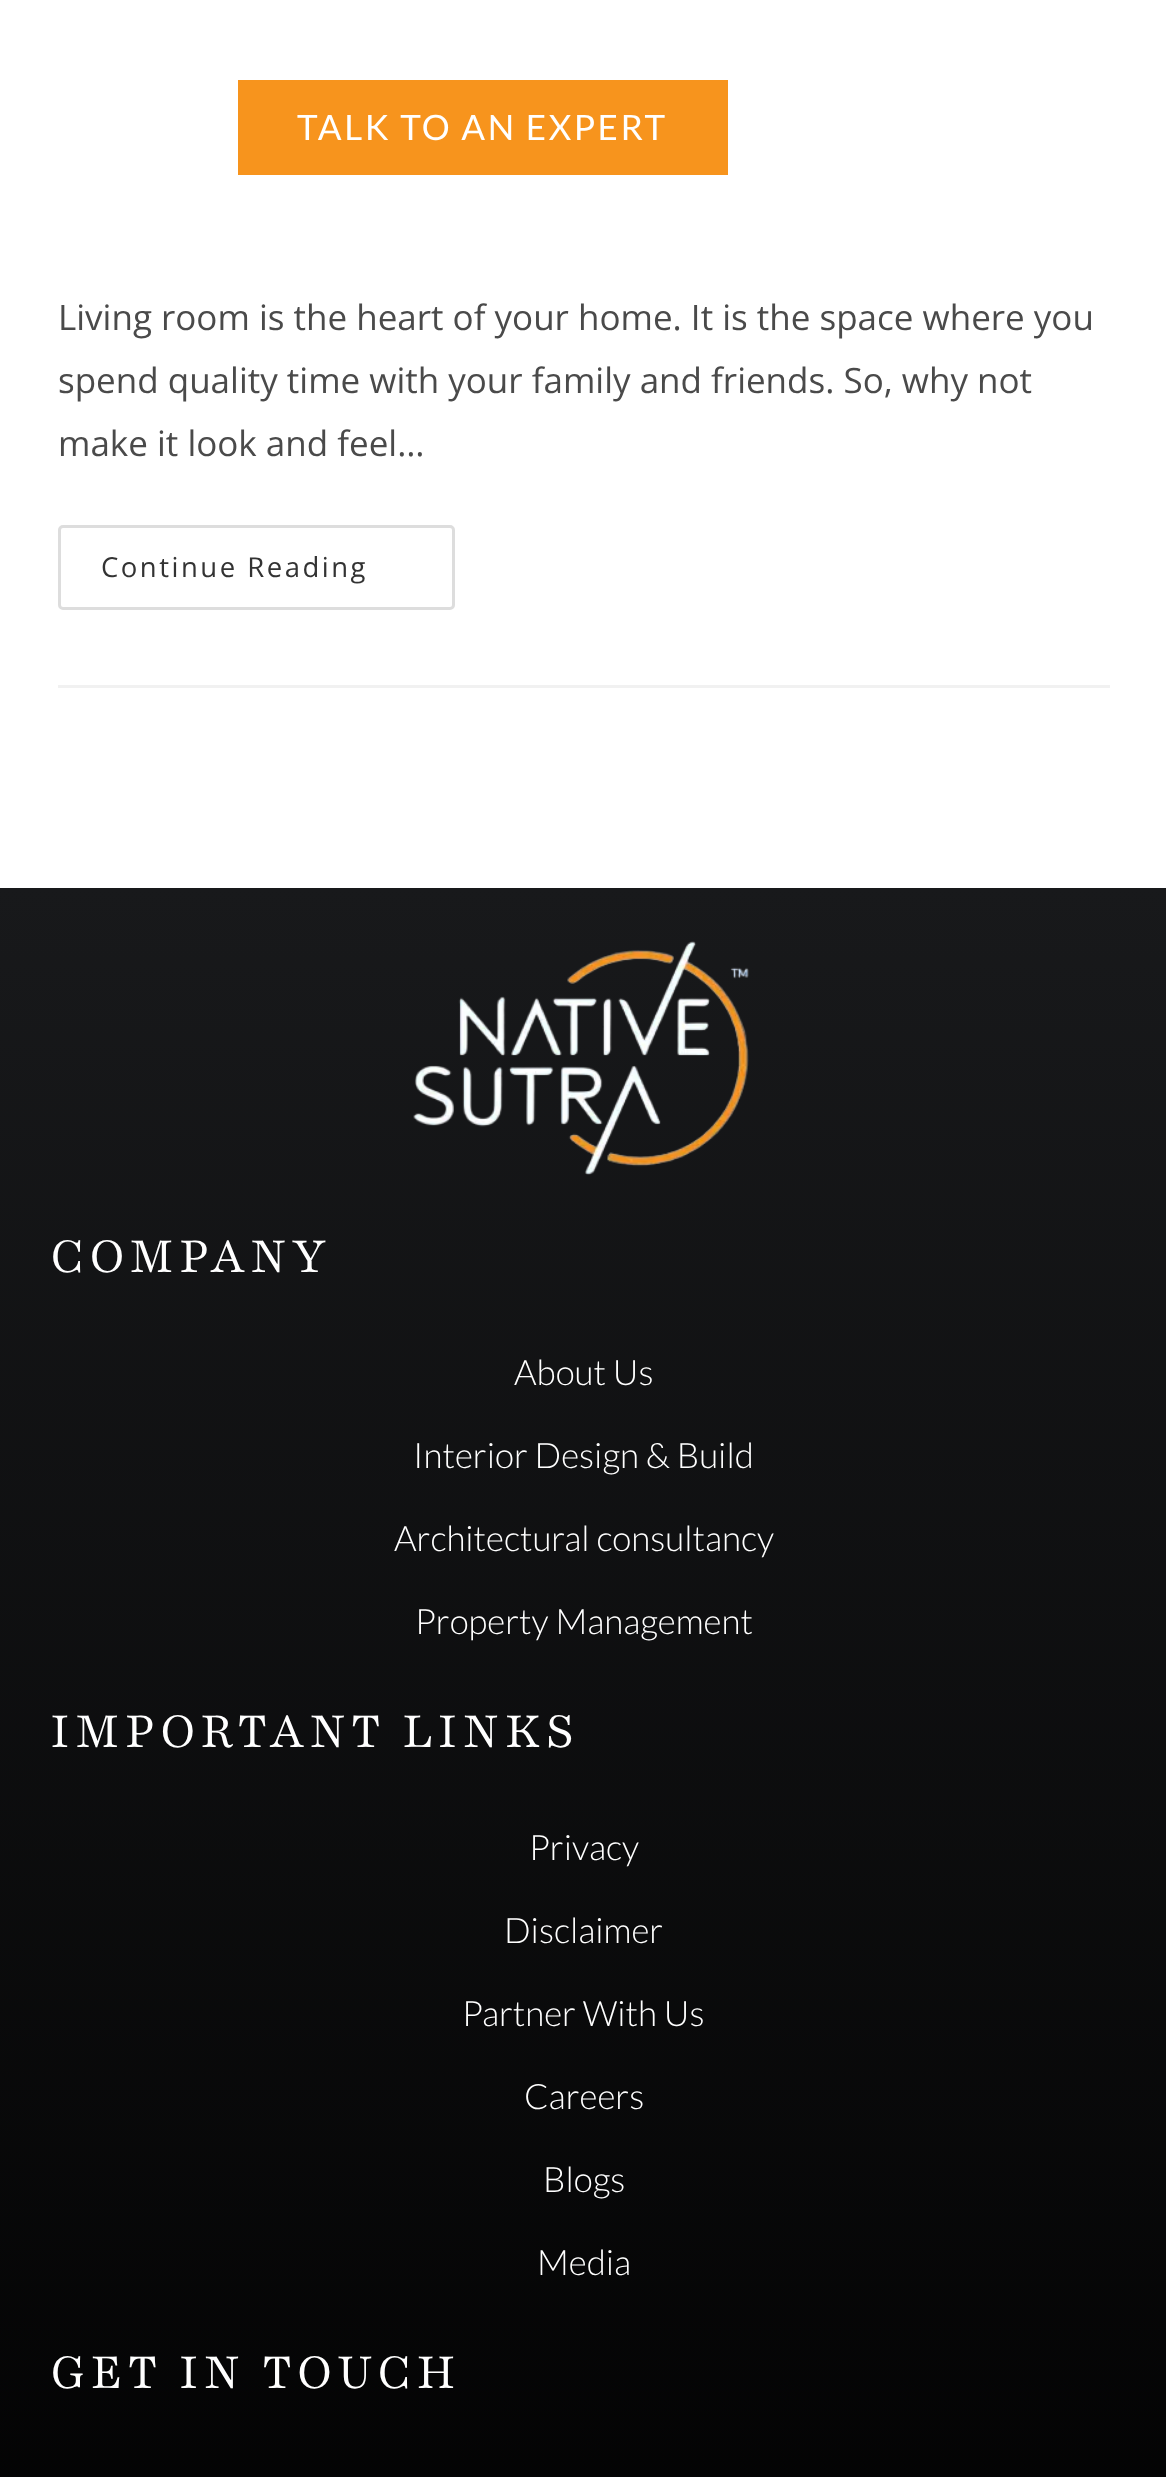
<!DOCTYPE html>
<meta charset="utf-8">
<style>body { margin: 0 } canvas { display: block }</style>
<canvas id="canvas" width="1166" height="2477"></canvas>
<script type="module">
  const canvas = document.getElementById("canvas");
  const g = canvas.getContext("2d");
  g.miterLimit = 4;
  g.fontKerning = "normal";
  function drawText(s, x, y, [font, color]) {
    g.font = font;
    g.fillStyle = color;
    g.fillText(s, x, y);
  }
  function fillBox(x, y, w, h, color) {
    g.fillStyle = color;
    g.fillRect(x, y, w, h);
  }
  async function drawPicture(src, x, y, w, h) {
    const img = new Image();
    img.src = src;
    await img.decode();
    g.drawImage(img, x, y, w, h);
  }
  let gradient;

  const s1 = ["35px Lato", "#FFFFFF"];
  const s2 = ["35px Open Sans", "#4A4A4A"];
  const s3 = ["27.5px Open Sans", "#333333"];
  const s4 = ["300 55px 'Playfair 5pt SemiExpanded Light'", "#FFFFFF"];
  const s5 = ["300 35px Lato", "#FFFFFF"];

  fillBox(0, 0, 1166, 2477, "#FFFFFF");
  fillBox(238, 80, 490, 95, "#F7941D");
  g.letterSpacing = "2.5px";
  drawText("TALK TO AN EXPERT", 297, 140, s1);
  fillBox(58, 685, 1052, 3, "#F1F1F1");
  g.letterSpacing = "0px";
  drawText("Living room is the heart of your home. It is the space where you", 58, 330, s2);
  drawText("spend quality time with your family and friends. So, why not", 58, 393, s2);
  drawText("make it look and feel…", 58, 456, s2);
  g.beginPath();
  g.roundRect(59.5, 526.5, 394, 82, 3.5);
  g.strokeStyle = "#DDDDDD";
  g.lineWidth = 3;
  g.stroke();
  g.letterSpacing = "2.5px";
  drawText("Continue Reading", 101, 577, s3);
  gradient = g.createLinearGradient(584, 887, 584, 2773);
  gradient.addColorStop(0, "#18191B");
  gradient.addColorStop(1, "#000000");
  g.fillStyle = gradient;
  g.fillRect(0, 888, 1166, 1589);
  await drawPicture("pic1.png", 413, 941, 336, 234);
  g.letterSpacing = "5px";
  drawText("COMPANY", 50, 1272, s4);
  g.letterSpacing = "0px";
  drawText("About Us", 514, 1385, s5);
  drawText("Interior Design & Build", 413, 1468, s5);
  drawText("Architectural consultancy", 394, 1551, s5);
  drawText("Property Management", 415, 1634, s5);
  g.letterSpacing = "5px";
  drawText("IMPORTANT LINKS", 50, 1747, s4);
  g.letterSpacing = "0px";
  drawText("Privacy", 529, 1860, s5);
  drawText("Disclaimer", 504, 1943, s5);
  drawText("Partner With Us", 462, 2026, s5);
  drawText("Careers", 524, 2109, s5);
  drawText("Blogs", 543, 2192, s5);
  drawText("Media", 537, 2275, s5);
  g.letterSpacing = "5px";
  drawText("GET IN TOUCH", 50, 2388, s4);
</script>
